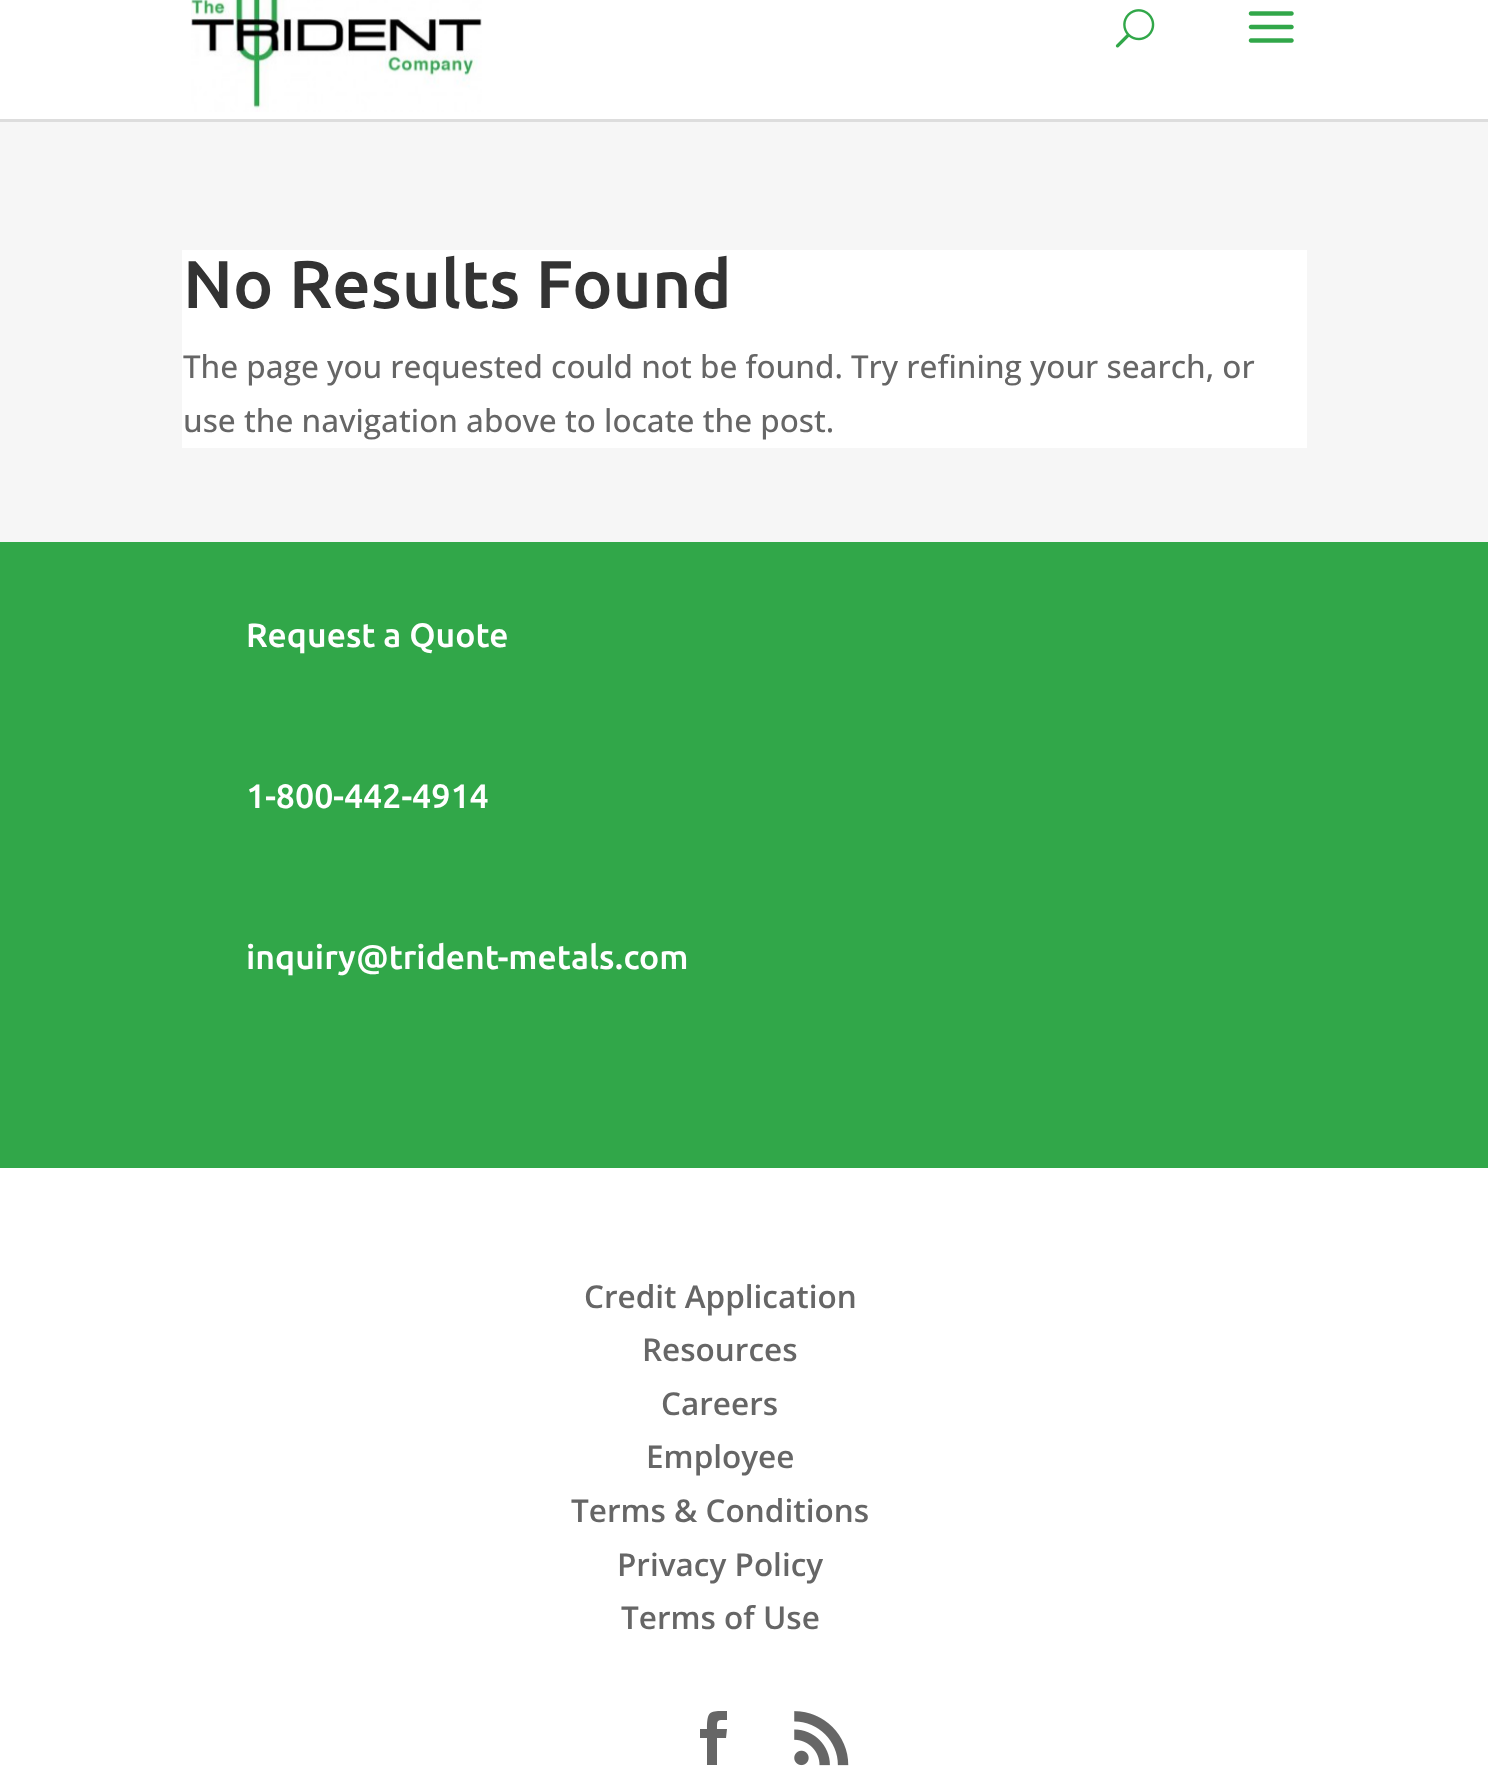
<!DOCTYPE html>
<meta charset="utf-8">
<style>body { margin: 0 } canvas { display: block }</style>
<canvas id="canvas" width="1488" height="1776"></canvas>
<script type="module">
  const canvas = document.getElementById("canvas");
  const g = canvas.getContext("2d");
  g.miterLimit = 4;
  g.fontKerning = "normal";
  function drawText(s, x, y, [font, color]) {
    g.font = font;
    g.fillStyle = color;
    g.fillText(s, x, y);
  }
  function fillBox(x, y, w, h, color) {
    g.fillStyle = color;
    g.fillRect(x, y, w, h);
  }
  async function drawPicture(src, x, y, w, h) {
    const img = new Image();
    img.src = src;
    await img.decode();
    g.drawImage(img, x, y, w, h);
  }

  const s1 = ["500 67.5px Ubuntu", "#333333"];
  const s2 = ["500 31.5px Open Sans", "#666666"];
  const s3 = ["500 33.75px Ubuntu", "#FFFFFF"];
  const s4 = ["600 31.5px Open Sans", "#666666"];

  fillBox(0, 0, 1488, 1776, "#FFFFFF");
  g.fillStyle = "#DDDDDD";
  g.beginPath();
  g.moveTo(0, 119);
  g.lineTo(0, 122);
  g.lineTo(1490, 122);
  g.lineTo(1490, -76);
  g.lineTo(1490, 119);
  g.closePath();
  g.fill();
  await drawPicture("pic1.png", 191, 0, 291, 112);
  await drawPicture("pic2.png", 1115, 9, 40, 39);
  await drawPicture("pic3.png", 1248, 11, 46, 32);
  fillBox(0, 122, 1488, 420, "#F6F6F6");
  fillBox(182, 250, 1125, 198, "#FFFFFF");
  drawText("No Results Found", 183, 308, s1);
  drawText("The page you requested could not be found. Try refining your search, or", 183, 378, s2);
  drawText("use the navigation above to locate the post.", 183, 432, s2);
  fillBox(0, 542, 1488, 626, "#31A749");
  drawText("Request a Quote", 246, 647, s3);
  drawText("1-800-442-4914", 246, 808, s3);
  drawText("inquiry@trident-metals.com", 246, 969, s3);
  drawText("Credit Application", 584, 1308, s4);
  drawText("Resources", 642, 1361, s4);
  drawText("Careers", 661, 1415, s4);
  drawText("Employee", 646, 1468, s4);
  drawText("Terms & Conditions", 571, 1522, s4);
  drawText("Privacy Policy", 617, 1576, s4);
  drawText("Terms of Use", 621, 1629, s4);
  g.beginPath();
  g.moveTo(707, 1765);
  g.lineTo(717, 1765);
  g.lineTo(717, 1738);
  g.lineTo(726, 1738);
  g.lineTo(727, 1729);
  g.lineTo(717, 1729);
  g.bezierCurveTo(717, 1719, 717, 1720, 727, 1720);
  g.lineTo(727, 1711);
  g.bezierCurveTo(710, 1711, 707, 1710, 707, 1729);
  g.lineTo(700, 1729);
  g.lineTo(700, 1738);
  g.lineTo(707, 1738);
  g.closePath();
  g.fill();
  await drawPicture("pic4.png", 794, 1711, 55, 55);
</script>
